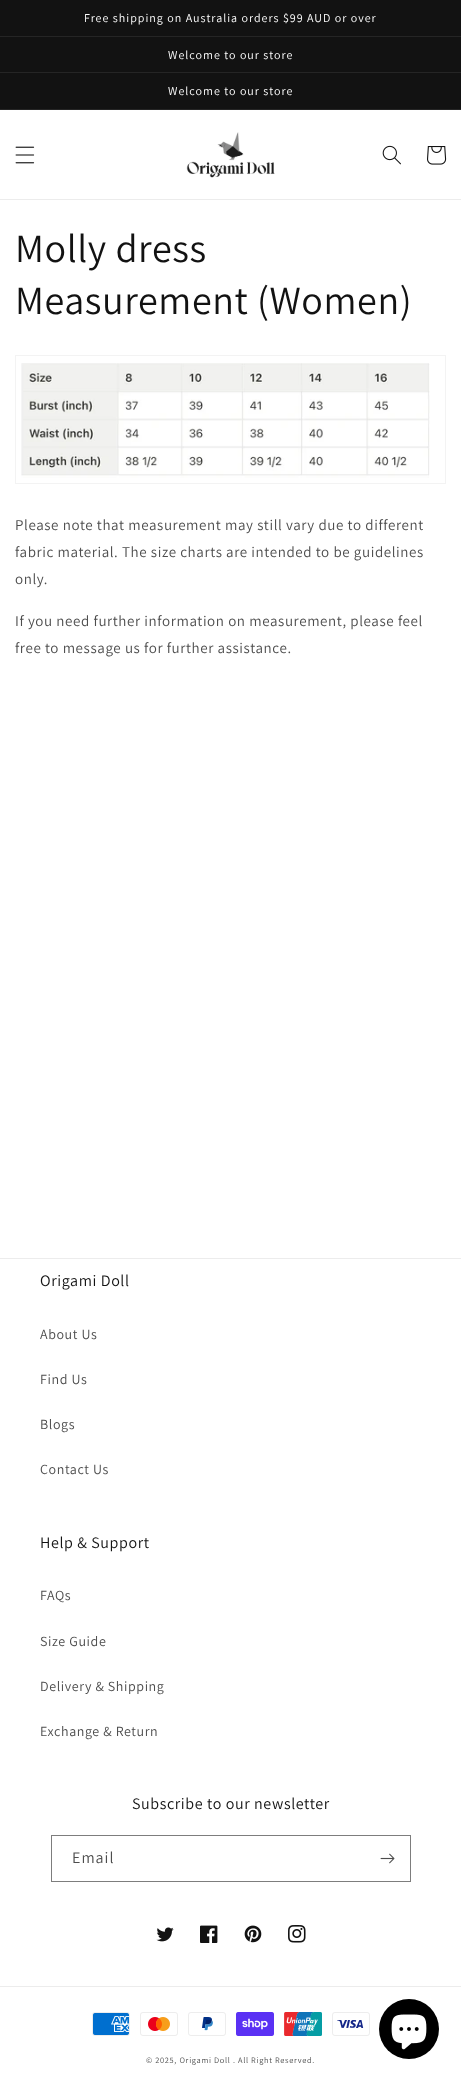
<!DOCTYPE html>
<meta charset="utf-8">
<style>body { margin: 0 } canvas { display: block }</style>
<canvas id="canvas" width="461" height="2080"></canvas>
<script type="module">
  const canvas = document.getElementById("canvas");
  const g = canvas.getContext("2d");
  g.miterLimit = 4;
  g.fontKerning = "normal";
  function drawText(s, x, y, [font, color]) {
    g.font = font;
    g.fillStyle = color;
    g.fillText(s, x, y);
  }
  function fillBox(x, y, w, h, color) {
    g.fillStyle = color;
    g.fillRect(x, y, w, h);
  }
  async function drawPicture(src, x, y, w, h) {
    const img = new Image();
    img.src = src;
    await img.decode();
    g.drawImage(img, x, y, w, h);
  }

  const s1 = ["12px Assistant", "#FFFFFF"];
  const s2 = ["40px Assistant", "#121212"];
  const s3 = ["15px Assistant", "#4D4D4D"];
  const s4 = ["16px Assistant", "#121212"];
  const s5 = ["14px Assistant", "#4D4D4D"];
  const s6 = ["16px Assistant", "#4D4D4D"];
  const s7 = ["8.3px Assistant", "#4D4D4D"];

  fillBox(0, 0, 461, 2080, "#FFFFFF");
  fillBox(0, 0, 461, 36, "#121212");
  fillBox(0, 36, 461, 1, "#252525");
  g.letterSpacing = "1px";
  drawText("Free shipping on Australia orders $99 AUD or over", 84, 22, s1);
  fillBox(0, 37, 461, 35, "#121212");
  fillBox(0, 72, 461, 1, "#252525");
  drawText("Welcome to our store", 168, 59, s1);
  fillBox(0, 73, 461, 36, "#121212");
  fillBox(0, 109, 461, 1, "#252525");
  drawText("Welcome to our store", 168, 95, s1);
  fillBox(0, 199, 461, 1, "#ECECEC");
  await drawPicture("pic1.png", 15, 146, 20, 18);
  await drawPicture("pic2.png", 186, 132, 89, 46);
  await drawPicture("pic3.png", 382, 145, 19, 20);
  await drawPicture("pic4.png", 427, 146, 20, 19);
  g.letterSpacing = "0.6px";
  drawText("Molly dress", 15, 262, s2);
  drawText("Measurement (Women)", 15, 314, s2);
  g.strokeStyle = "#F3F3F3";
  g.strokeRect(15.5, 355.5, 430, 128);
  await drawPicture("pic5.png", 21, 363, 409, 115);
  drawText("Please note that measurement may still vary due to different", 15, 530, s3);
  drawText("fabric material. The size charts are intended to be guidelines", 15, 557, s3);
  drawText("only.", 15, 584, s3);
  drawText("If you need further information on measurement, please feel", 15, 626, s3);
  drawText("free to message us for further assistance.", 15, 653, s3);
  fillBox(0, 1258, 461, 1, "#ECECEC");
  drawText("Origami Doll", 40, 1286, s4);
  drawText("About Us", 40, 1339, s5);
  drawText("Find Us", 40, 1384, s5);
  drawText("Blogs", 40, 1429, s5);
  drawText("Contact Us", 40, 1474, s5);
  drawText("Help & Support", 40, 1548, s4);
  drawText("FAQs", 40, 1600, s5);
  drawText("Size Guide", 40, 1646, s5);
  drawText("Delivery & Shipping", 40, 1691, s5);
  drawText("Exchange & Return", 40, 1736, s5);
  drawText("Subscribe to our newsletter", 132, 1809, s4);
  g.strokeStyle = "#7D7D7D";
  g.strokeRect(51.5, 1835.5, 359, 46);
  g.letterSpacing = "1px";
  drawText("Email", 72, 1863, s6);
  await drawPicture("pic6.png", 380, 1853, 15, 11);
  await drawPicture("pic7.png", 156, 1927, 18, 15);
  await drawPicture("pic8.png", 200, 1925, 18, 18);
  await drawPicture("pic9.png", 244, 1925, 18, 18);
  await drawPicture("pic10.png", 288, 1925, 18, 18);
  fillBox(0, 1986, 461, 1, "#ECECEC");
  await drawPicture("pic11.png", 92, 2012, 38, 24);
  await drawPicture("pic12.png", 140, 2012, 38, 24);
  await drawPicture("pic13.png", 188, 2012, 38, 24);
  await drawPicture("pic14.png", 236, 2012, 38, 24);
  await drawPicture("pic15.png", 284, 2012, 38, 24);
  await drawPicture("pic16.png", 332, 2012, 38, 24);
  g.letterSpacing = "0.7px";
  drawText("© 2025, Origami Doll . All Right Reserved.", 146, 2063, s7);
  g.fillStyle = "#000000";
  g.beginPath();
  g.arc(409, 2029, 30, 0, Math.PI * 2);
  g.fill();
  await drawPicture("pic17.png", 391, 2014, 36, 36);
</script>
